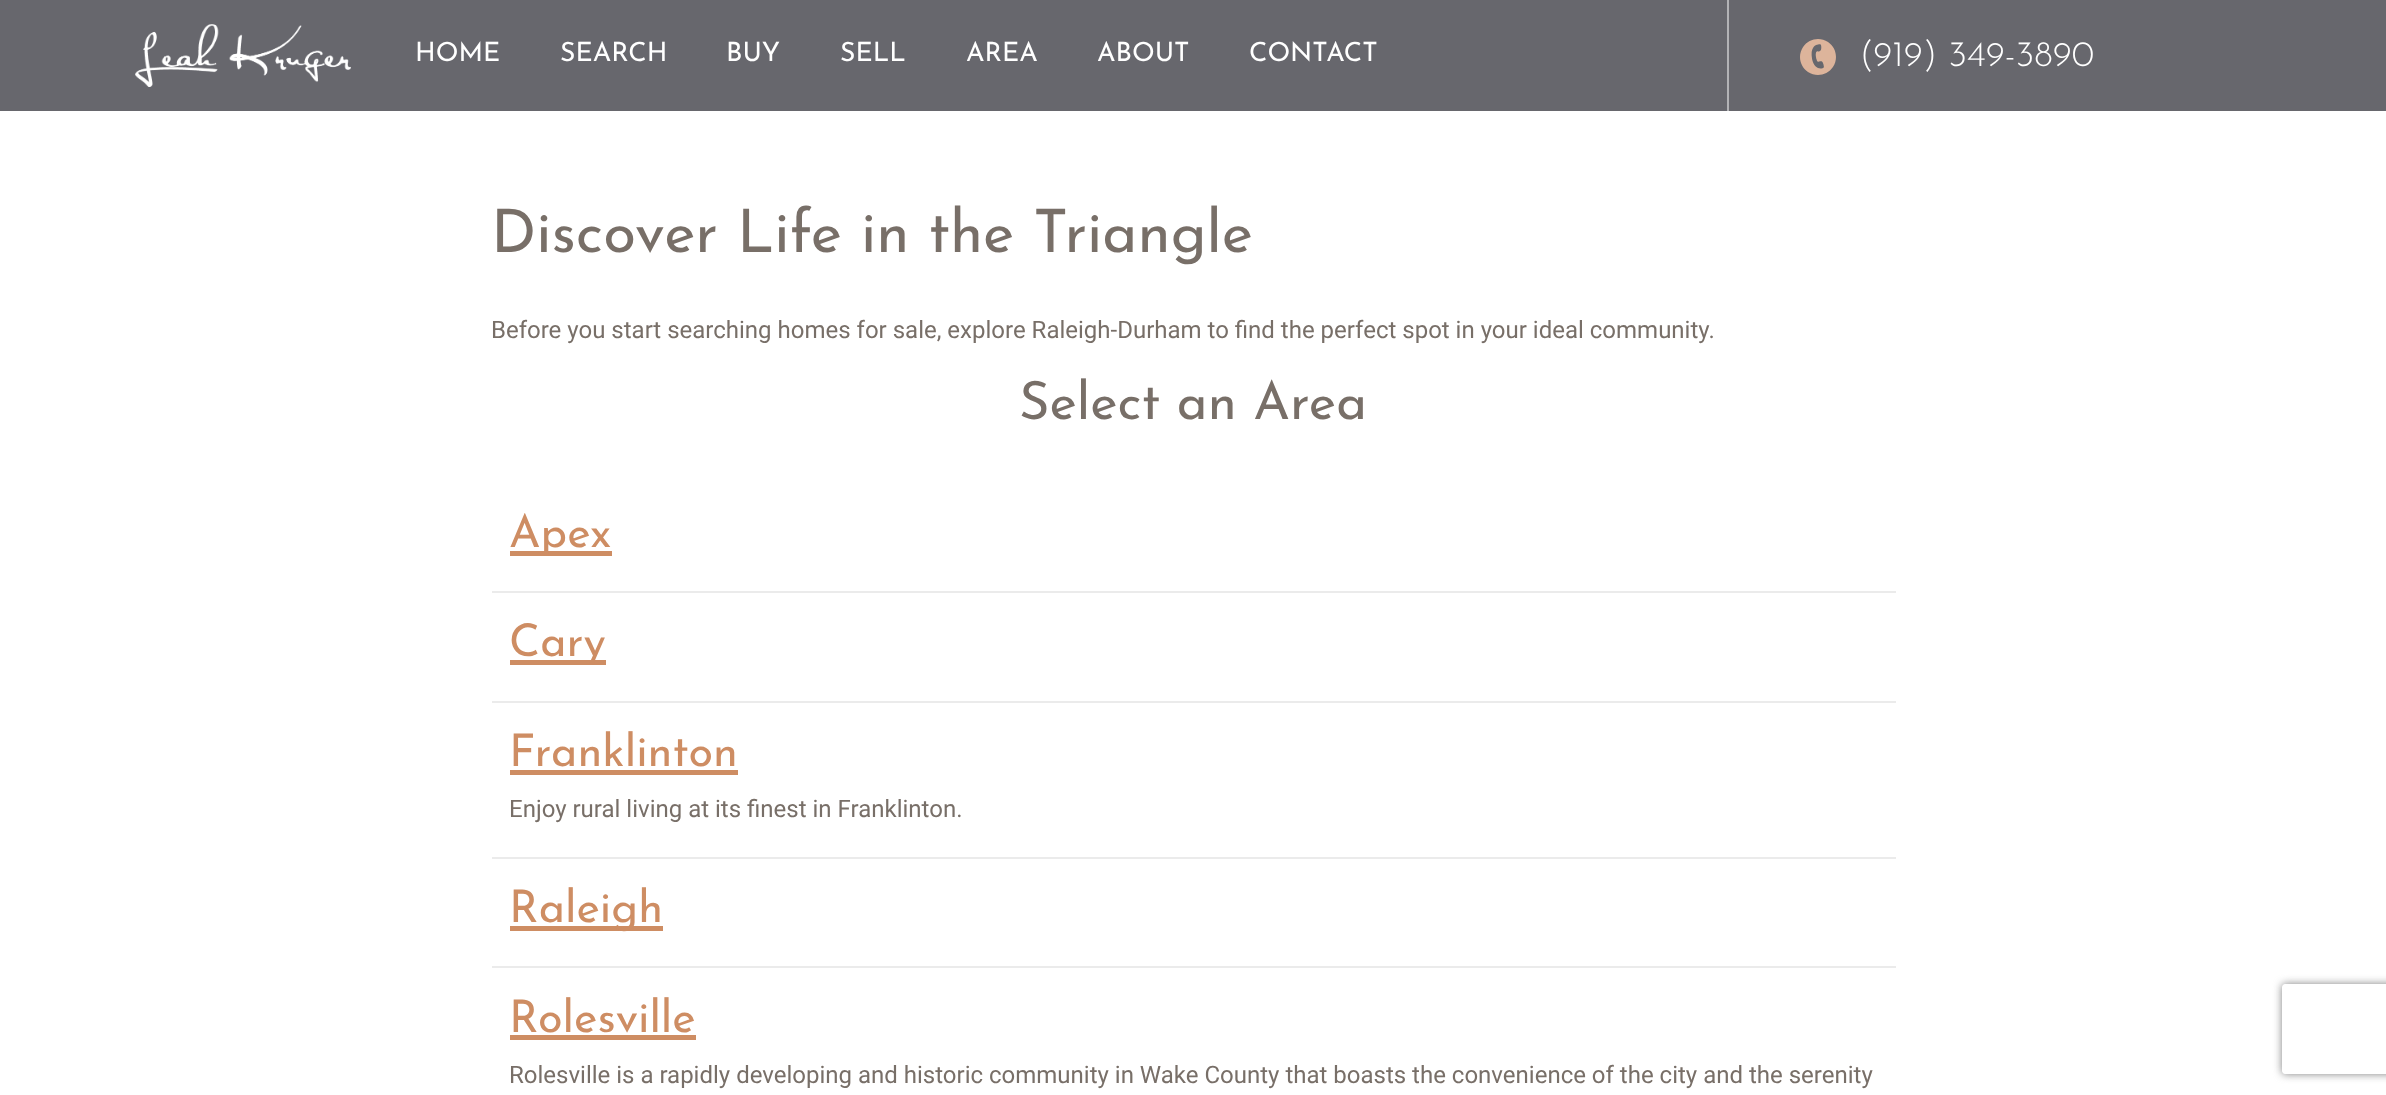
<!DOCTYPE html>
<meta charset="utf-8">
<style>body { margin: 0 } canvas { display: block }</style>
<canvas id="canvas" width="2386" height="1095"></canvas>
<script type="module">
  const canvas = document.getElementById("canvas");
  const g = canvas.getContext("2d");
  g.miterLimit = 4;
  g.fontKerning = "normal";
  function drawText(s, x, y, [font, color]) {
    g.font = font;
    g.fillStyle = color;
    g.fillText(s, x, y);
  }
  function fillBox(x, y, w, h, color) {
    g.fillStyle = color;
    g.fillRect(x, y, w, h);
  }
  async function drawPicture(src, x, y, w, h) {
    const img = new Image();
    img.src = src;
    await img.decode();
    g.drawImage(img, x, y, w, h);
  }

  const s1 = ["26.5px Josefin Sans", "#FFFFFF"];
  const s2 = ["300 36px Josefin Sans", "#FFFFFF"];
  const s3 = ["60px Josefin Sans", "#786F68"];
  const s4 = ["24px Roboto", "#786F68"];
  const s5 = ["52.5px Josefin Sans", "#786F68"];
  const s6 = ["45px Josefin Sans", "#CE8D63"];

  fillBox(0, 0, 2386, 1095, "#FFFFFF");
  fillBox(0, 0, 2386, 111, "#67676D");
  await drawPicture("pic1.png", 135, 24, 216, 63);
  drawText("HOME", 415, 61, s1);
  drawText("SEARCH", 560, 61, s1);
  drawText("BUY", 726, 61, s1);
  drawText("SELL", 840, 61, s1);
  drawText("AREA", 966, 61, s1);
  drawText("ABOUT", 1097, 61, s1);
  drawText("CONTACT", 1249, 61, s1);
  fillBox(1727, 0, 2, 111, "#B3B3B6");
  await drawPicture("pic2.png", 1800, 39, 36, 36);
  drawText("(919) 349-3890", 1859, 66, s2);
  drawText("Discover Life in the Triangle", 491, 252, s3);
  drawText("Before you start searching homes for sale, explore Raleigh-Durham to find the perfect spot in your ideal community.", 491, 338, s4);
  drawText("Select an Area", 1019, 419, s5);
  fillBox(492, 591, 1404, 2, "#EBEBEB");
  fillBox(510, 551, 102, 5, "#CE8D63");
  drawText("Apex", 509, 547, s6);
  fillBox(492, 701, 1404, 2, "#EBEBEB");
  fillBox(510, 660, 96, 5, "#CE8D63");
  drawText("Cary", 509, 656, s6);
  fillBox(492, 857, 1404, 2, "#EBEBEB");
  drawText("Franklinton", 509, 766, s6);
  fillBox(510, 770, 228, 5, "#CE8D63");
  drawText("Enjoy rural living at its finest in Franklinton.", 509, 817, s4);
  fillBox(492, 966, 1404, 2, "#EBEBEB");
  fillBox(510, 926, 153, 5, "#CE8D63");
  drawText("Raleigh", 509, 922, s6);
  drawText("Rolesville", 509, 1032, s6);
  fillBox(510, 1035, 186, 5, "#CE8D63");
  drawText("Rolesville is a rapidly developing and historic community in Wake County that boasts the convenience of the city and the serenity", 509, 1083, s4);
  g.save();
  g.beginPath();
  g.moveTo(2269, 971);
  g.lineTo(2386, 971);
  g.lineTo(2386, 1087);
  g.lineTo(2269, 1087);
  g.closePath();
  g.moveTo(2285, 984);
  g.lineTo(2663, 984);
  g.bezierCurveTo(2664.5, 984, 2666, 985.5, 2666, 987);
  g.lineTo(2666, 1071);
  g.bezierCurveTo(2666, 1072.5, 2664.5, 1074, 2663, 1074);
  g.lineTo(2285, 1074);
  g.bezierCurveTo(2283.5, 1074, 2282, 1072.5, 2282, 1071);
  g.lineTo(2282, 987);
  g.bezierCurveTo(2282, 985.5, 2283.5, 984, 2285, 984);
  g.closePath();
  g.clip("evenodd");
  g.fillStyle = "#808080";
  g.filter = "blur(4px)";
  g.beginPath();
  g.roundRect(2282, 984, 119, 90, 3);
  g.fill();
  g.filter = "none";
  g.restore();
</script>
